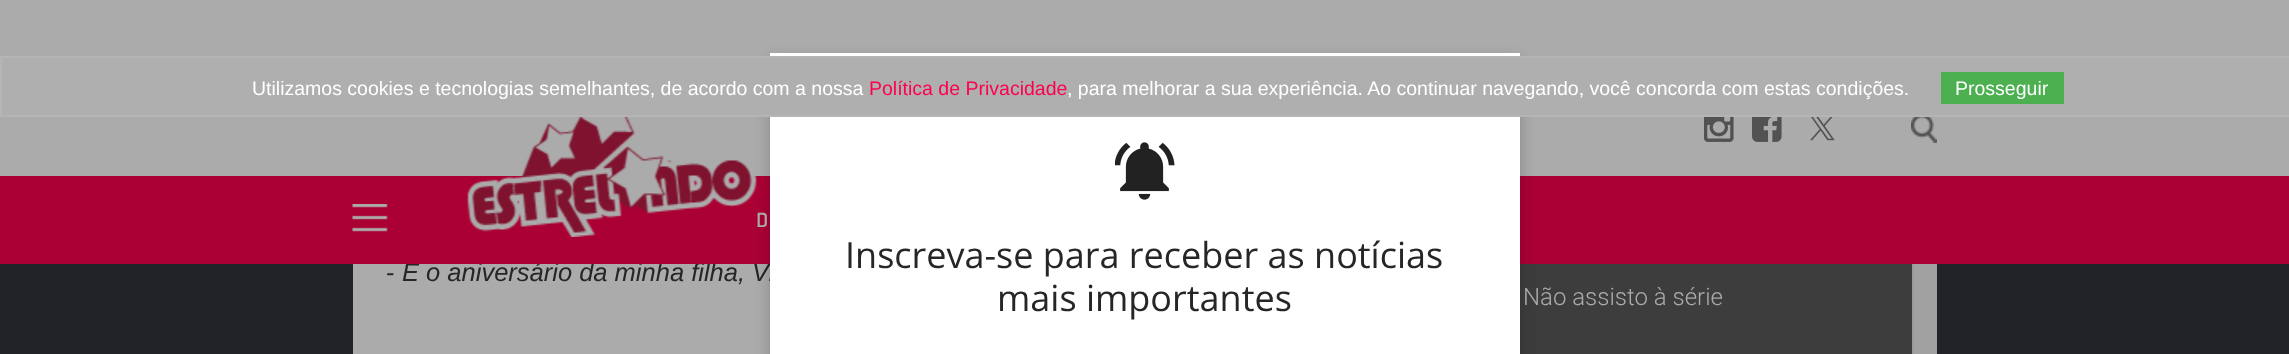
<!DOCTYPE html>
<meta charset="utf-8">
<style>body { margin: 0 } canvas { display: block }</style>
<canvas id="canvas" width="2289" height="354"></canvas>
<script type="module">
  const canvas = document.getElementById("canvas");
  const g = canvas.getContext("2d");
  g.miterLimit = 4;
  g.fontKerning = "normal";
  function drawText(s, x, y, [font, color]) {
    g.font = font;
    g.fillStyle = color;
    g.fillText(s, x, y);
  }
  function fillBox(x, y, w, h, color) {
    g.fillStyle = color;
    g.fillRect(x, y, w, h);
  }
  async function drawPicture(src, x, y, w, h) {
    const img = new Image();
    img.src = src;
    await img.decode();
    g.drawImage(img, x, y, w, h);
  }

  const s1 = ["italic 25.5px Liberation Sans", "#262626"];
  const s2 = ["19.5px Liberation Sans", "#FFFFFF"];
  const s3 = ["19.5px Liberation Sans", "#FF004E"];
  const s4 = ["600 22px Rajdhani", "#ABABAB"];
  const s5 = ["36px Open Sans", "#262626"];
  const s6 = ["25.5px Liberation Sans", "#262626"];
  const s7 = ["300 24px Roboto", "#ABABAB"];

  fillBox(0, 0, 2289, 354, "#222229");
  fillBox(1520, 264, 392, 90, "#3D3D3D");
  g.strokeStyle = "#999999";
  g.lineWidth = 2;
  g.strokeRect(1462, -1, 451, 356);
  fillBox(0, 0, 2289, 176, "#ABABAB");
  fillBox(353, 264, 417, 90, "#ABABAB");
  drawText("É o aniversário da minha filha, Vi", 402, 281, s1);
  fillBox(0, 176, 2289, 88, "#AB0034");
  await drawPicture("pic6.png", 467, 117, 290, 120);
  g.fillStyle = "rgba(0, 0, 0, 0.2)";
  g.filter = "blur(7.5px)";
  g.beginPath();
  g.rect(770, 60, 750, 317);
  g.fill();
  g.filter = "none";
  fillBox(770, 53, 750, 301, "#FFFFFF");
  g.fillStyle = "#AFAFAF";
  g.beginPath();
  g.rect(1, 57, 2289, 59);
  g.fill();
  g.strokeStyle = "#B7B4B4";
  g.stroke();
  drawText("Utilizamos cookies e tecnologias semelhantes, de acordo com a nossa", 252, 95, s2);
  drawText("Política de Privacidade", 869, 95, s3);
  drawText(", para melhorar a sua experiência. Ao continuar navegando, você concorda com estas condições.", 1067, 95, s2);
  fillBox(1941, 72, 123, 32, "#4CAF50");
  drawText("Prosseguir", 1955, 95, s2);
  await drawPicture("pic1.png", 1704, 117, 30, 25);
  await drawPicture("pic2.png", 1752, 117, 30, 25);
  await drawPicture("pic3.png", 1810, 117, 25, 24);
  await drawPicture("pic4.png", 1911, 117, 26, 26);
  await drawPicture("pic5.png", 352, 204, 36, 28);
  drawText("D", 756, 227, s4);
  await drawPicture("pic7.png", 1115, 142, 60, 58);
  drawText("Inscreva-se para receber as notícias", 845, 268, s5);
  drawText("mais importantes", 997, 311, s5);
  drawText("-", 386, 281, s6);
  fillBox(1914, 264, 23, 90, "#A1A1A1");
  drawText("Não assisto à série", 1523, 305, s7);
</script>
